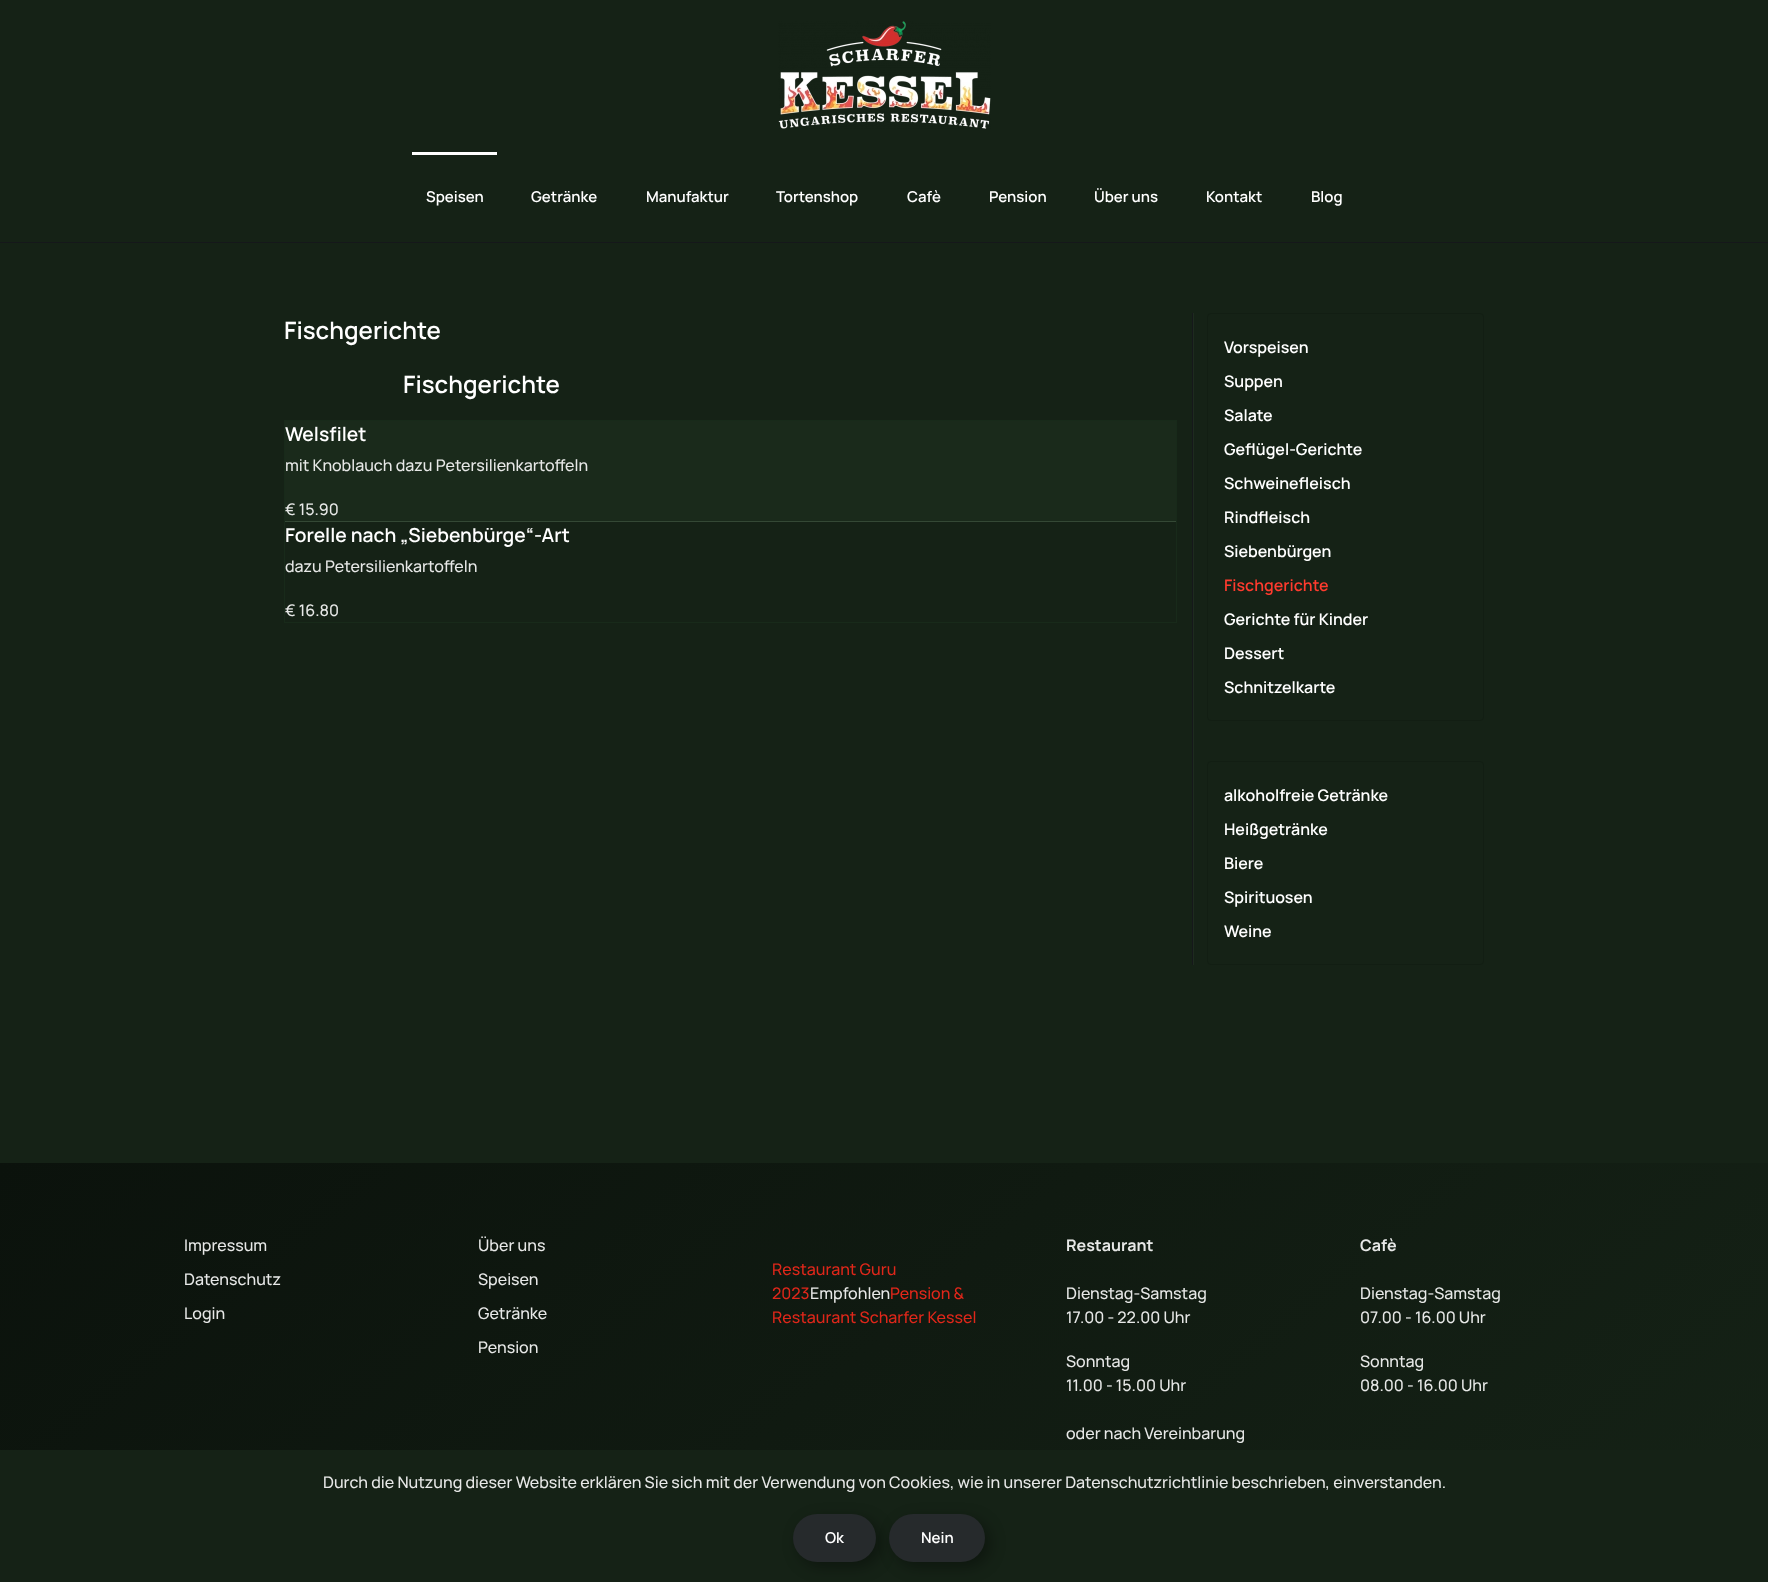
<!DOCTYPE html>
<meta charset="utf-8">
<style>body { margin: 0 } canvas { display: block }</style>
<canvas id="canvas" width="1768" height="1582"></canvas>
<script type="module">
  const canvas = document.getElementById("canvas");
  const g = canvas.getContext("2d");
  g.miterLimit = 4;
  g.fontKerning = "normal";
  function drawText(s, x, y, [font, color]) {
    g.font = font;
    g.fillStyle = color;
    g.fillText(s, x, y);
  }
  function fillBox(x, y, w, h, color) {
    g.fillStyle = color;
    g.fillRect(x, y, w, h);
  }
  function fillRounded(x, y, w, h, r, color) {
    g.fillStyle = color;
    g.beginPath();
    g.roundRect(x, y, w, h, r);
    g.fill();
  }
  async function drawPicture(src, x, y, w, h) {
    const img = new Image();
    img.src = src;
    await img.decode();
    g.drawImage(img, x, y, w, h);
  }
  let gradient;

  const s1 = ["200 15px 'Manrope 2'", "#FFFFFF"];
  const s2 = ["200 24px 'Manrope 2'", "#FFFFFF"];
  const s3 = ["200 19.25px 'Manrope 2'", "#FFFFFF"];
  const s4 = ["200 16px Manrope", "#E7E8E7"];
  const s5 = ["200 16px 'Manrope 2'", "#FFFFFF"];
  const s6 = ["200 16px 'Manrope 2'", "#FF3B2E"];
  const s7 = ["200 16px Manrope", "#E0271A"];
  const s8 = ["200 16px 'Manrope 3'", "#E7E8E7"];

  fillBox(0, 0, 1768, 1582, "#152216");
  await drawPicture("pic1.png", 778, 21, 213, 108);
  fillBox(0, 242, 1768, 1, "#15181A");
  fillBox(412, 152, 85, 3, "#FFFFFF");
  drawText("Speisen", 426, 202, s1);
  drawText("Getränke", 531, 202, s1);
  drawText("Manufaktur", 646, 202, s1);
  drawText("Tortenshop", 776, 202, s1);
  drawText("Cafè", 907, 202, s1);
  drawText("Pension", 989, 202, s1);
  drawText("Über uns", 1094, 202, s1);
  drawText("Kontakt", 1206, 202, s1);
  drawText("Blog", 1311, 202, s1);
  drawText("Fischgerichte", 284, 339, s2);
  drawText("Fischgerichte", 403, 393, s2);
  g.strokeStyle = "#182A1A";
  g.strokeRect(284.5, 420.5, 892, 202);
  fillBox(285, 421, 891, 100, "#1A2A1B");
  fillBox(285, 521, 891, 1, "#344835");
  drawText("Welsfilet", 285, 441, s3);
  drawText("mit Knoblauch dazu Petersilienkartoffeln", 285, 471, s4);
  drawText("€ 15.90", 285, 515, s4);
  drawText("Forelle nach „Siebenbürge“-Art", 285, 542, s3);
  drawText("dazu Petersilienkartoffeln", 285, 572, s4);
  drawText("€ 16.80", 285, 616, s4);
  fillBox(1193, 313, 1, 652, "#1E2B1F");
  fillBox(1192, 313, 1, 652, "#15181A");
  g.beginPath();
  g.roundRect(1207.5, 313.5, 276, 407, 3.5);
  g.strokeStyle = "#121E13";
  g.stroke();
  drawText("Vorspeisen", 1224, 353, s5);
  drawText("Suppen", 1224, 387, s5);
  drawText("Salate", 1224, 421, s5);
  drawText("Geflügel-Gerichte", 1224, 455, s5);
  drawText("Schweinefleisch", 1224, 489, s5);
  drawText("Rindfleisch", 1224, 523, s5);
  drawText("Siebenbürgen", 1224, 557, s5);
  drawText("Fischgerichte", 1224, 591, s6);
  drawText("Gerichte für Kinder", 1224, 625, s5);
  drawText("Dessert", 1224, 659, s5);
  drawText("Schnitzelkarte", 1224, 693, s5);
  g.beginPath();
  g.roundRect(1207.5, 761.5, 276, 203, 3.5);
  g.stroke();
  drawText("alkoholfreie Getränke", 1224, 801, s5);
  drawText("Heißgetränke", 1224, 835, s5);
  drawText("Biere", 1224, 869, s5);
  drawText("Spirituosen", 1224, 903, s5);
  drawText("Weine", 1224, 937, s5);
  gradient = g.createLinearGradient(1336, 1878, 432, 800);
  gradient.addColorStop(0, "#152216");
  gradient.addColorStop(1, "#0B120C");
  g.fillStyle = gradient;
  g.fillRect(0, 1163, 1768, 287);
  drawText("Impressum", 184, 1251, s4);
  drawText("Datenschutz", 184, 1285, s4);
  drawText("Login", 184, 1319, s4);
  drawText("Über uns", 478, 1251, s4);
  drawText("Speisen", 478, 1285, s4);
  drawText("Getränke", 478, 1319, s4);
  drawText("Pension", 478, 1353, s4);
  drawText("Restaurant Guru", 772, 1275, s7);
  drawText("2023", 772, 1299, s7);
  drawText("Empfohlen", 810, 1299, s4);
  drawText("Pension &", 890, 1299, s7);
  drawText("Restaurant Scharfer Kessel", 772, 1323, s7);
  drawText("Restaurant", 1066, 1251, s8);
  drawText("Dienstag-Samstag", 1066, 1299, s4);
  drawText("17.00 - 22.00 Uhr", 1066, 1323, s4);
  drawText("Sonntag", 1066, 1367, s4);
  drawText("11.00 - 15.00 Uhr", 1066, 1391, s4);
  drawText("oder nach Vereinbarung", 1066, 1439, s4);
  drawText("Cafè", 1360, 1251, s8);
  drawText("Dienstag-Samstag", 1360, 1299, s4);
  drawText("07.00 - 16.00 Uhr", 1360, 1323, s4);
  drawText("Sonntag", 1360, 1367, s4);
  drawText("08.00 - 16.00 Uhr", 1360, 1391, s4);
  drawText("Durch die Nutzung dieser Website erklären Sie sich mit der Verwendung von Cookies, wie in unserer Datenschutzrichtlinie beschrieben, einverstanden.", 323, 1488, s4);
  g.fillStyle = "rgba(0, 0, 0, 0.35)";
  g.filter = "blur(7.5px)";
  g.beginPath();
  g.roundRect(798, 1519, 83, 48, 24);
  g.fill();
  g.filter = "none";
  fillRounded(793, 1514, 83, 48, 24, "#262A2C");
  drawText("Ok", 825, 1543, s1);
  g.fillStyle = "rgba(0, 0, 0, 0.35)";
  g.filter = "blur(7.5px)";
  g.beginPath();
  g.roundRect(894, 1519, 96, 48, 24);
  g.fill();
  g.filter = "none";
  fillRounded(889, 1514, 96, 48, 24, "#262A2C");
  drawText("Nein", 921, 1543, s1);
</script>
